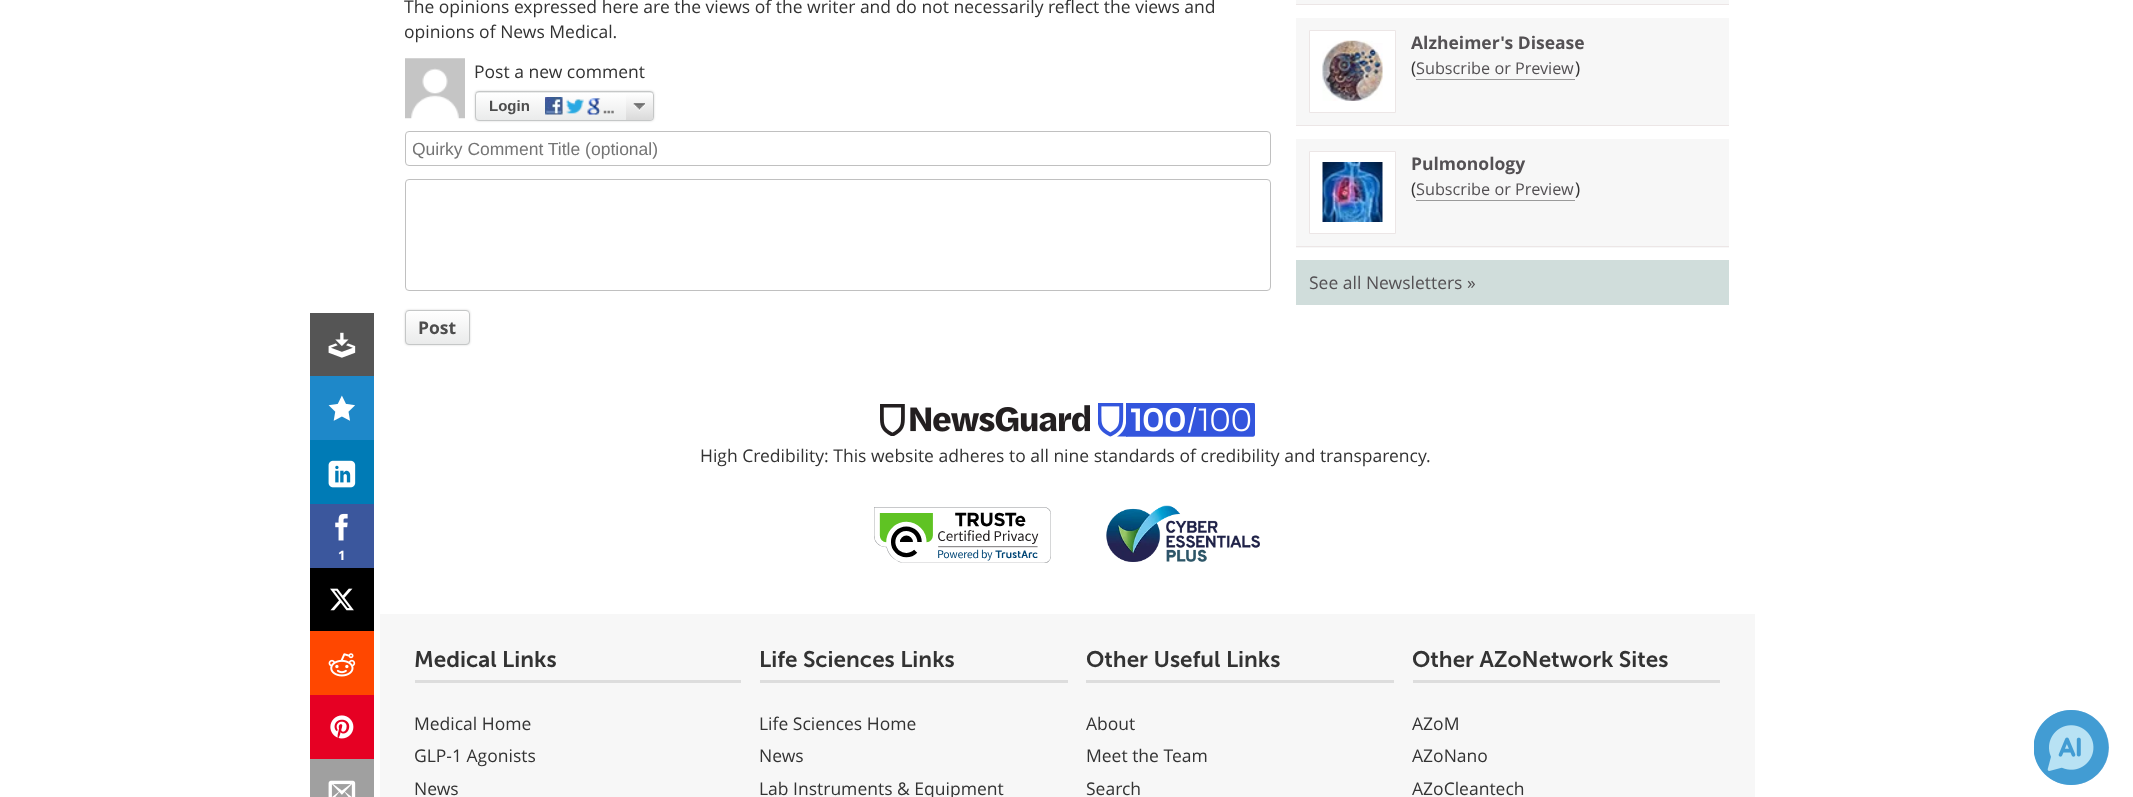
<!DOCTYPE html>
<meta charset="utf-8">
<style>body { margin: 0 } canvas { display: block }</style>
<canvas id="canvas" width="2133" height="797"></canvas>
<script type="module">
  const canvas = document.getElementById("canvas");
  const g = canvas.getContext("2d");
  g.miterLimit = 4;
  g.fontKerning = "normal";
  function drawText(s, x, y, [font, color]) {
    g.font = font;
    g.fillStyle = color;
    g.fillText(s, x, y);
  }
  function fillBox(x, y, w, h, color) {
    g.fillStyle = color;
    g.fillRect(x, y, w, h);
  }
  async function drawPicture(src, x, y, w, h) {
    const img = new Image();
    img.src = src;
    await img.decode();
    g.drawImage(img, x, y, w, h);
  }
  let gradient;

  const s1 = ["17.5px Open Sans", "#333333"];
  const s2 = ["bold 15px Liberation Sans", "#4D4D4D"];
  const s3 = ["17.5px Liberation Sans", "#757575"];
  const s4 = ["bold 17.5px Open Sans", "#4D4D4D"];
  const s5 = ["bold 13px Open Sans", "#FFFFFF"];
  const s6 = ["bold 17.5px Open Sans", "#545154"];
  const s7 = ["16.25px Open Sans", "#545154"];
  const s8 = ["17.5px Open Sans", "#545154"];
  const s9 = ["600 22.5px 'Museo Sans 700'", "#333333"];

  fillBox(0, 0, 2133, 797, "#FFFFFF");
  drawText("The opinions expressed here are the views of the writer and do not necessarily reflect the views and", 404, 13, s1);
  drawText("opinions of News Medical.", 404, 38, s1);
  await drawPicture("pic1.png", 405, 58, 60, 61);
  drawText("Post a new comment", 474, 78, s1);
  g.fillStyle = "rgba(0, 0, 0, 0.15)";
  g.filter = "blur(1px)";
  g.beginPath();
  g.roundRect(475, 91, 179, 30, 4);
  g.fill();
  g.filter = "none";
  g.save();
  g.beginPath();
  g.roundRect(475, 91, 179, 30, 4);
  g.clip();
  gradient = g.createLinearGradient(476, 65, 476, 93);
  gradient.addColorStop(0, "#FFFFFF");
  gradient.addColorStop(1, "#EAEBEB");
  g.fillStyle = gradient;
  g.fillRect(475, 91, 179, 2);
  gradient = g.createLinearGradient(476, 93, 476, 120);
  gradient.addColorStop(0, "#FFFFFF");
  gradient.addColorStop(1, "#EAEBEB");
  g.fillStyle = gradient;
  g.fillRect(475, 93, 179, 27);
  g.restore();
  g.beginPath();
  g.roundRect(475.5, 91.5, 178, 29, 3.5);
  g.strokeStyle = "#C5C7C7";
  g.stroke();
  drawText("Login", 489, 111, s2);
  await drawPicture("pic2.png", 545, 97, 69, 18);
  gradient = g.createLinearGradient(626, 93, 626, 120);
  gradient.addColorStop(0, "#FFFFFF");
  gradient.addColorStop(1, "#DADADA");
  g.fillStyle = gradient;
  g.beginPath();
  g.roundRect(626, 93, 27, 27, [0, 4, 4, 0]);
  g.fill();
  await drawPicture("pic3.png", 633, 103, 12, 8);
  g.beginPath();
  g.roundRect(405.5, 131.5, 865, 34, 3.5);
  g.strokeStyle = "#C0C0C0";
  g.stroke();
  g.save();
  g.beginPath();
  g.rect(413, 139, 851, 20);
  g.clip();
  drawText("Quirky Comment Title (optional)", 412, 155, s3);
  g.restore();
  g.beginPath();
  g.roundRect(405.5, 179.5, 865, 111, 3.5);
  g.stroke();
  g.fillStyle = "rgba(0, 0, 0, 0.15)";
  g.filter = "blur(1px)";
  g.beginPath();
  g.roundRect(405, 310, 65, 35, 4);
  g.fill();
  g.filter = "none";
  g.save();
  g.beginPath();
  g.roundRect(405, 310, 65, 35, 4);
  g.clip();
  gradient = g.createLinearGradient(406, 311, 406, 344);
  gradient.addColorStop(0, "#FFFFFF");
  gradient.addColorStop(1, "#EAEBEB");
  g.fillStyle = gradient;
  g.fillRect(405, 311, 65, 33);
  g.restore();
  g.beginPath();
  g.roundRect(405.5, 310.5, 64, 34, 3.5);
  g.strokeStyle = "#C5C7C7";
  g.stroke();
  drawText("Post", 418, 334, s4);
  fillBox(310, 313, 64, 63, "#555555");
  await drawPicture("pic4.png", 328, 332, 28, 26);
  fillBox(310, 376, 64, 64, "#1E88C9");
  await drawPicture("pic5.png", 328, 395, 27, 26);
  fillBox(310, 440, 64, 64, "#007BB6");
  await drawPicture("pic6.png", 328, 460, 28, 28);
  fillBox(310, 504, 64, 64, "#3B579D");
  await drawPicture("pic7.png", 335, 513, 13, 28);
  drawText("1", 338, 560, s5);
  fillBox(310, 568, 64, 63, "#000000");
  await drawPicture("pic8.png", 330, 588, 24, 23);
  fillBox(310, 631, 64, 64, "#FF4700");
  await drawPicture("pic9.png", 328, 653, 28, 24);
  fillBox(310, 695, 64, 64, "#E60023");
  await drawPicture("pic10.png", 330, 715, 24, 24);
  fillBox(310, 759, 64, 38, "#A0A0A0");
  await drawPicture("pic11.png", 328, 780, 28, 17);
  fillBox(1296, 0, 433, 4, "#F7F7F7");
  fillBox(1296, 4, 433, 1, "#ECE6E6");
  fillBox(1296, 18, 433, 107, "#F7F7F7");
  fillBox(1296, 125, 433, 1, "#ECE6E6");
  g.fillStyle = "#FFFFFF";
  g.beginPath();
  g.rect(1309.5, 30.5, 86, 82);
  g.fill();
  g.strokeStyle = "#ECE6E6";
  g.stroke();
  await drawPicture("pic12.png", 1322, 40, 61, 61);
  drawText("Alzheimer's Disease", 1411, 49, s6);
  drawText("(", 1411, 74, s1);
  drawText("Subscribe or Preview", 1416, 74, s7);
  fillBox(1416, 79, 159, 1, "#9A9A9A");
  drawText(")", 1575, 74, s1);
  fillBox(1296, 139, 433, 109, "#F7F7F7");
  fillBox(1296, 246, 433, 1, "#ECE6E6");
  g.fillStyle = "#FFFFFF";
  g.beginPath();
  g.rect(1309.5, 151.5, 86, 82);
  g.fill();
  g.stroke();
  await drawPicture("pic13.png", 1322, 162, 61, 60);
  drawText("Pulmonology", 1411, 170, s6);
  drawText("(", 1411, 195, s1);
  drawText("Subscribe or Preview", 1416, 195, s7);
  fillBox(1416, 200, 159, 1, "#9A9A9A");
  drawText(")", 1575, 195, s1);
  fillBox(1296, 260, 433, 45, "#D0DDDB");
  drawText("See all Newsletters »", 1309, 289, s8);
  await drawPicture("pic14.png", 880, 404, 210, 32);
  await drawPicture("pic15.png", 1098, 403, 157, 34);
  drawText("High Credibility: This website adheres to all nine standards of credibility and transparency.", 700, 462, s1);
  await drawPicture("pic16.png", 874, 507, 177, 56);
  await drawPicture("pic17.png", 1106, 505, 154, 57);
  fillBox(380, 614, 1375, 183, "#F7F7F7");
  fillBox(415, 680, 326, 3, "#DDDDDD");
  drawText("Medical Links", 414, 667, s9);
  drawText("Medical Home", 414, 730, s1);
  drawText("GLP-1 Agonists", 414, 762, s1);
  drawText("News", 414, 795, s1);
  fillBox(760, 680, 308, 3, "#DDDDDD");
  drawText("Life Sciences Links", 759, 667, s9);
  drawText("Life Sciences Home", 759, 730, s1);
  drawText("News", 759, 762, s1);
  drawText("Lab Instruments & Equipment", 759, 795, s1);
  fillBox(1086, 680, 308, 3, "#DDDDDD");
  drawText("Other Useful Links", 1086, 667, s9);
  drawText("About", 1086, 730, s1);
  drawText("Meet the Team", 1086, 762, s1);
  drawText("Search", 1086, 795, s1);
  fillBox(1413, 680, 307, 3, "#DDDDDD");
  drawText("Other AZoNetwork Sites", 1412, 667, s9);
  drawText("AZoM", 1412, 730, s1);
  drawText("AZoNano", 1412, 762, s1);
  drawText("AZoCleantech", 1412, 795, s1);
  g.fillStyle = "#7FB3DB";
  g.beginPath();
  g.arc(2071.5, 747.5, 37.5, 0, Math.PI * 2);
  g.fill();
  await drawPicture("pic18.png", 2034, 710, 75, 75);
</script>
